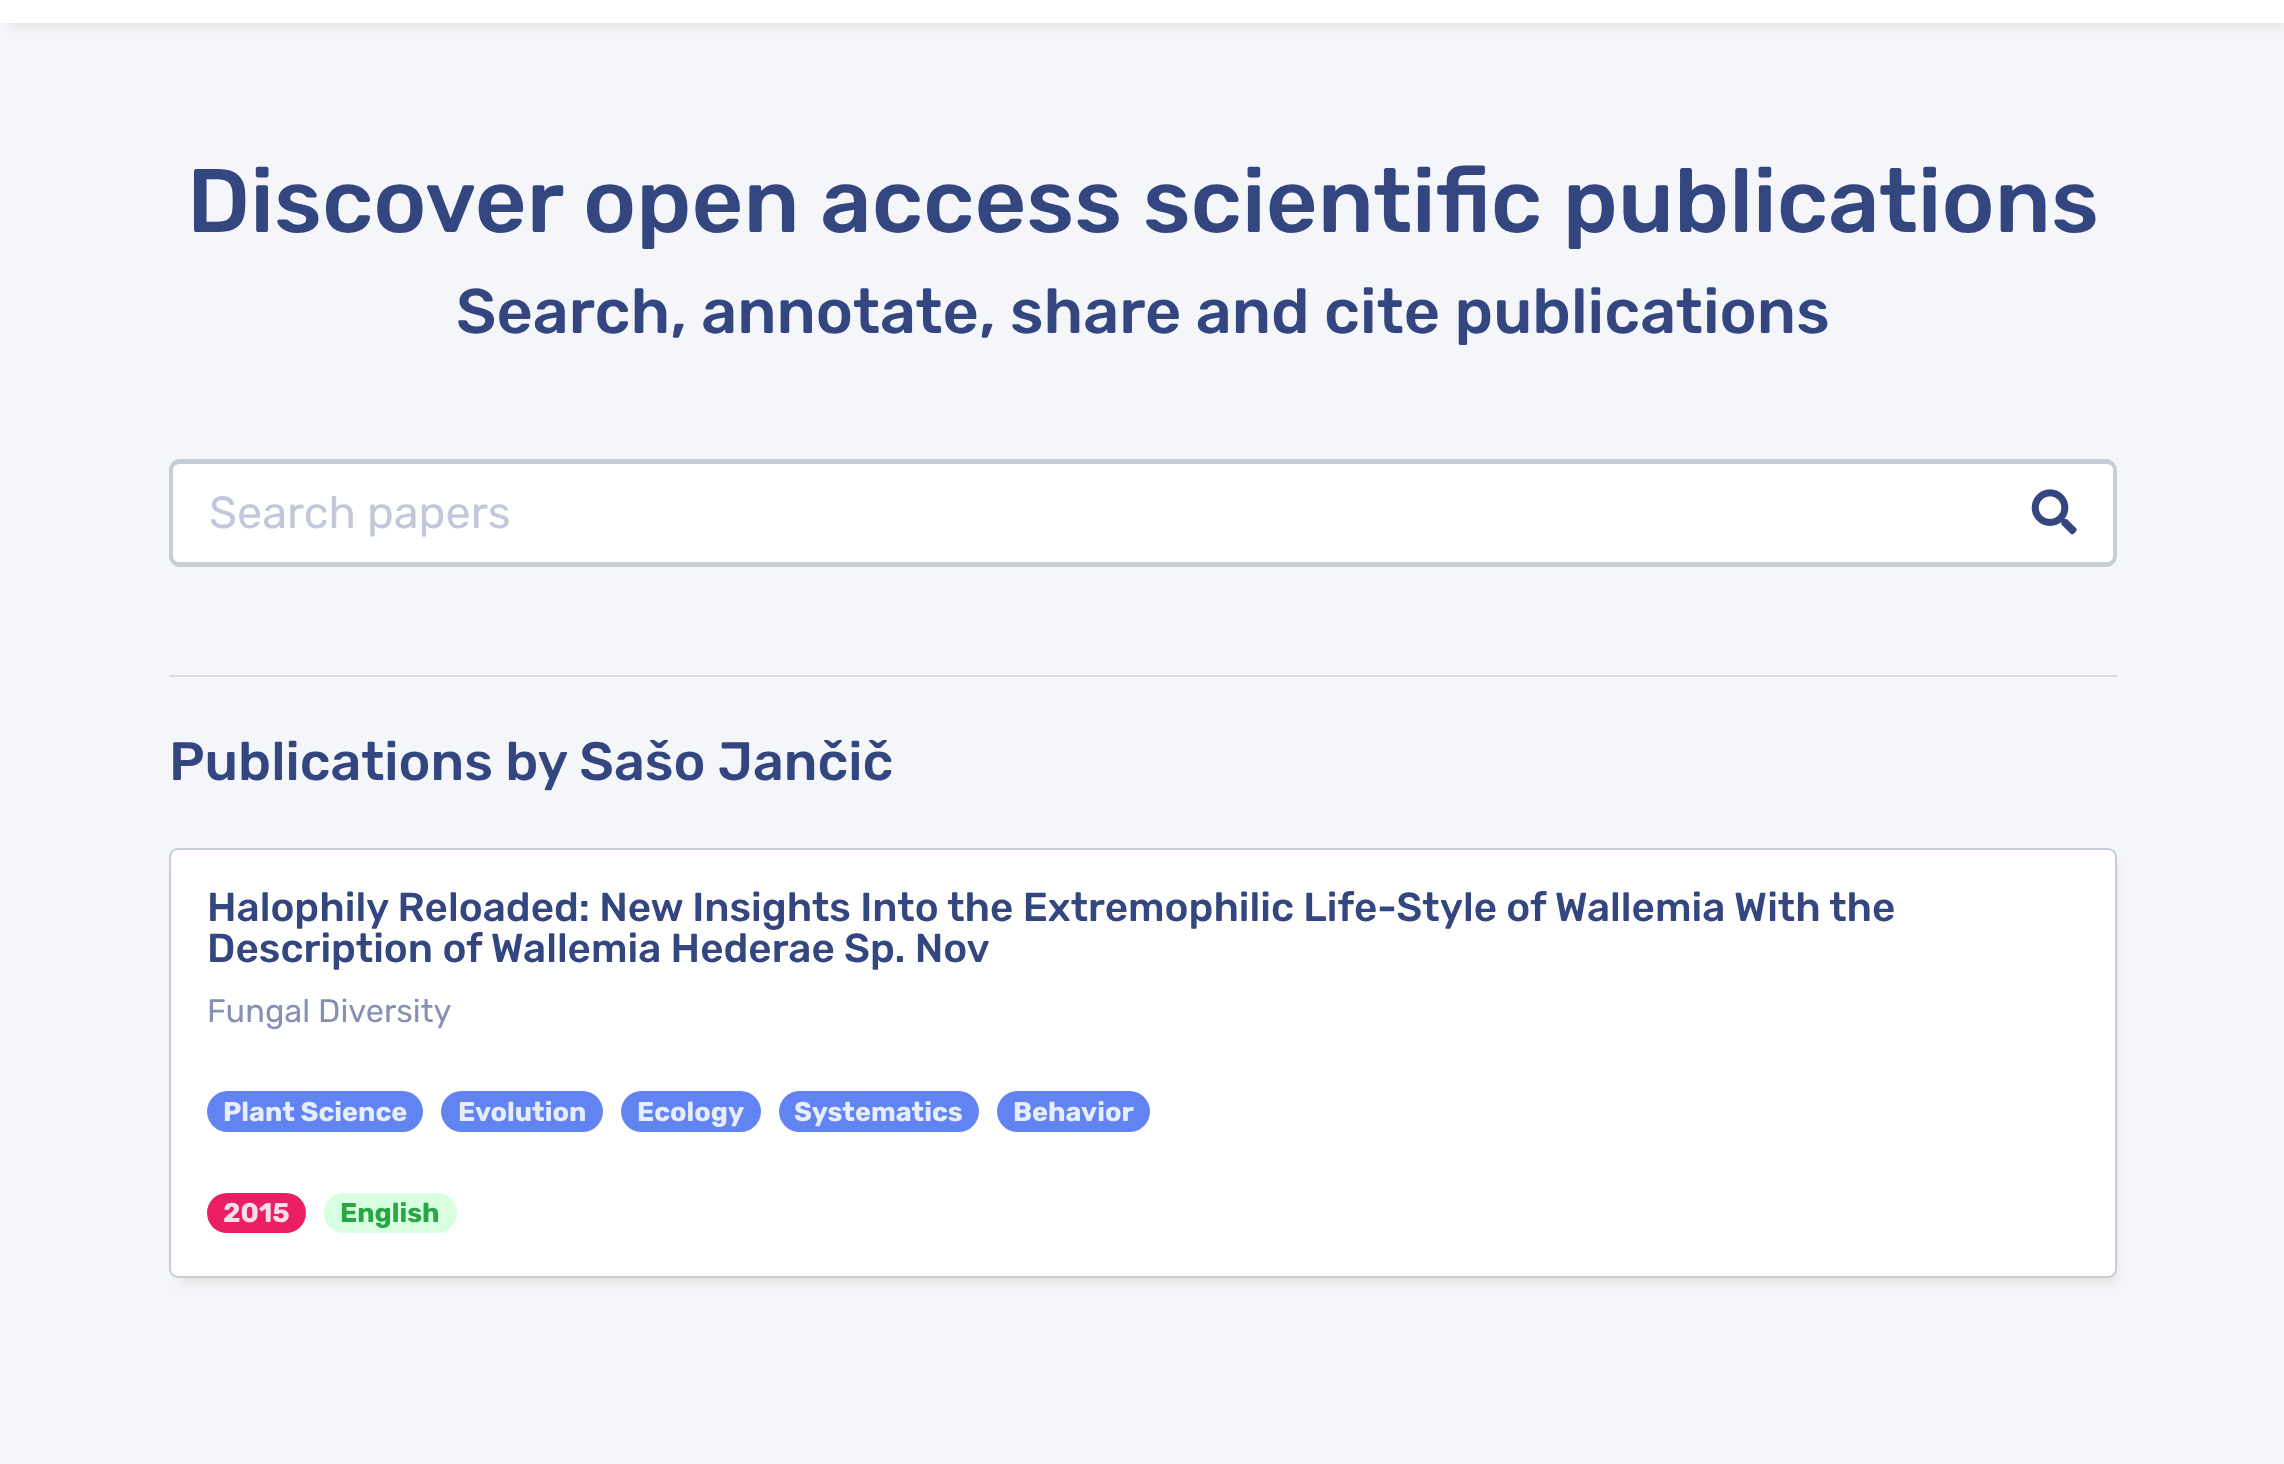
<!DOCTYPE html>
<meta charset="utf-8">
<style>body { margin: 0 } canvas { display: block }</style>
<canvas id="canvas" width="2284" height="1464"></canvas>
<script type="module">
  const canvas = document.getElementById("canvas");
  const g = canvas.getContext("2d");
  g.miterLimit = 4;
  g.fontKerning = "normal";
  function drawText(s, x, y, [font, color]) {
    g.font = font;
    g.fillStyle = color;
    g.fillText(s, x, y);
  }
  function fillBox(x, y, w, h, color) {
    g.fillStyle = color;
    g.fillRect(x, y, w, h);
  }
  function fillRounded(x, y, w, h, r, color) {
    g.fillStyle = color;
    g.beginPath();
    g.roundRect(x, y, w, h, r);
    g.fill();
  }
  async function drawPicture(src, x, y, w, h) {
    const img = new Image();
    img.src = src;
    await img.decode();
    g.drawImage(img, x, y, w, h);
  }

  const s1 = ["500 90px Rubik", "#334680"];
  const s2 = ["500 63px Rubik", "#334680"];
  const s3 = ["45px Rubik", "#C2C8D9"];
  const s4 = ["500 54px Rubik", "#334680"];
  const s5 = ["500 40.5px Rubik", "#334680"];
  const s6 = ["32.5px Rubik", "#8590B3"];
  const s7 = ["bold 27px Rubik", "#E7EDFD"];
  const s8 = ["bold 27px Rubik", "#FCDDE8"];
  const s9 = ["bold 27px Rubik", "#28A745"];

  fillBox(0, 0, 2284, 1464, "#F5F6F9");
  g.fillStyle = "rgba(227, 227, 227, 0.89)";
  g.filter = "blur(4.5px)";
  g.beginPath();
  g.rect(9, -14, 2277, 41);
  g.fill();
  g.filter = "none";
  fillBox(0, 0, 2284, 23, "#FFFFFF");
  drawText("Discover open access scientific publications", 187, 232, s1);
  drawText("Search, annotate, share and cite publications", 456, 333, s2);
  g.fillStyle = "#FFFFFF";
  g.beginPath();
  g.roundRect(1996, 459, 121, 108, [0, 11, 11, 0]);
  g.fill();
  g.fillStyle = "#C6CDD4";
  g.beginPath();
  g.moveTo(1996, 459);
  g.lineTo(2106, 459);
  g.bezierCurveTo(2112, 459, 2117, 464, 2117, 470);
  g.lineTo(2117, 556);
  g.bezierCurveTo(2117, 562, 2112, 567, 2106, 567);
  g.lineTo(1996, 567);
  g.closePath();
  g.moveTo(1996, 464);
  g.lineTo(2106, 464);
  g.bezierCurveTo(2110, 464, 2113, 466, 2113, 470);
  g.lineTo(2113, 556);
  g.bezierCurveTo(2113, 560, 2110, 562, 2106, 562);
  g.lineTo(1996, 562);
  g.closePath();
  g.fill("evenodd");
  g.fillStyle = "#FFFFFF";
  g.beginPath();
  g.roundRect(173, 464, 1825, 99, [7, 0, 0, 7]);
  g.fill();
  g.fillStyle = "#C6CDD4";
  g.beginPath();
  g.moveTo(180, 459);
  g.lineTo(1998, 459);
  g.lineTo(1998, 567);
  g.lineTo(180, 567);
  g.bezierCurveTo(174, 567, 169, 562, 169, 556);
  g.lineTo(169, 470);
  g.bezierCurveTo(169, 464, 174, 459, 180, 459);
  g.closePath();
  g.moveTo(180, 464);
  g.lineTo(1998, 464);
  g.lineTo(1998, 562);
  g.lineTo(180, 562);
  g.bezierCurveTo(176, 562, 173, 560, 173, 556);
  g.lineTo(173, 470);
  g.bezierCurveTo(173, 466, 176, 464, 180, 464);
  g.closePath();
  g.fill("evenodd");
  drawText("Search papers", 209, 528, s3);
  await drawPicture("pic1.png", 2031, 489, 46, 46);
  fillBox(169, 675, 1948, 2, "#DDDDE0");
  drawText("Publications by Sašo Jančič", 169, 780, s4);
  g.fillStyle = "rgba(227, 227, 227, 0.89)";
  g.filter = "blur(4.5px)";
  g.beginPath();
  g.roundRect(178, 862, 1939, 421, 5);
  g.fill();
  g.filter = "none";
  g.fillStyle = "#FFFFFF";
  g.beginPath();
  g.roundRect(170, 849, 1946, 428, 8);
  g.fill();
  g.strokeStyle = "#C6CDD4";
  g.lineWidth = 2;
  g.stroke();
  drawText("Halophily Reloaded: New Insights Into the Extremophilic Life-Style of Wallemia With the", 207, 921, s5);
  drawText("Description of Wallemia Hederae Sp. Nov", 207, 962, s5);
  drawText("Fungal Diversity", 207, 1022, s6);
  fillRounded(207, 1091, 216, 41, 20.5, "#6284F3");
  drawText("Plant Science", 223, 1121, s7);
  fillRounded(441, 1091, 162, 41, 20.5, "#6284F3");
  drawText("Evolution", 458, 1121, s7);
  fillRounded(621, 1091, 140, 41, 20.5, "#6284F3");
  drawText("Ecology", 637, 1121, s7);
  fillRounded(779, 1091, 200, 41, 20.5, "#6284F3");
  drawText("Systematics", 794, 1121, s7);
  fillRounded(997, 1091, 153, 41, 20.5, "#6284F3");
  drawText("Behavior", 1013, 1121, s7);
  fillRounded(207, 1193, 99, 40, 20, "#E91E63");
  drawText("2015", 223, 1222, s8);
  fillRounded(324, 1193, 133, 40, 20, "#D7FFE0");
  drawText("English", 340, 1222, s9);
</script>
